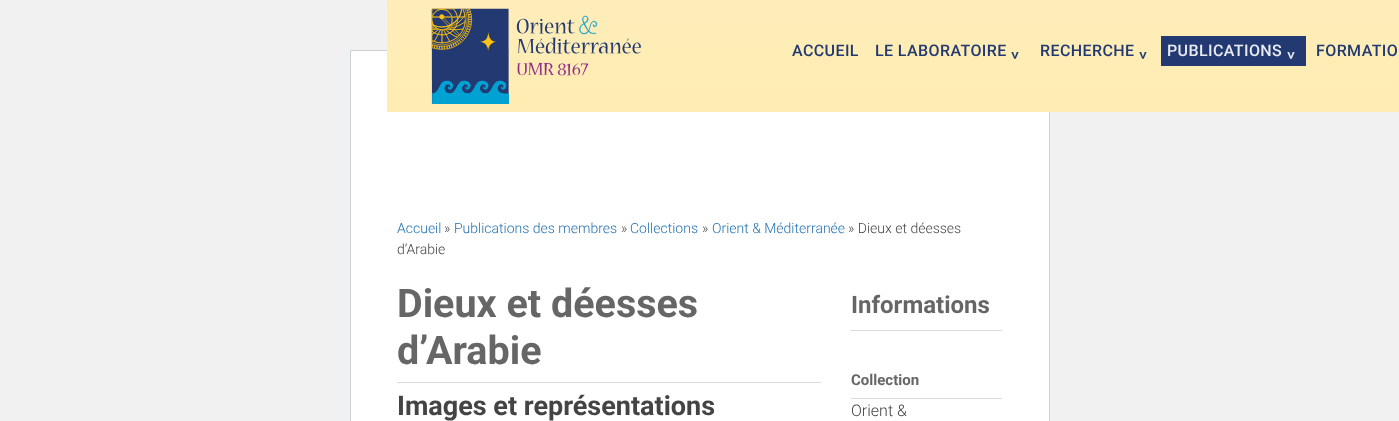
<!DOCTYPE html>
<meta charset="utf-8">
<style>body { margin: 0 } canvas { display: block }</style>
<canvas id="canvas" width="1399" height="421"></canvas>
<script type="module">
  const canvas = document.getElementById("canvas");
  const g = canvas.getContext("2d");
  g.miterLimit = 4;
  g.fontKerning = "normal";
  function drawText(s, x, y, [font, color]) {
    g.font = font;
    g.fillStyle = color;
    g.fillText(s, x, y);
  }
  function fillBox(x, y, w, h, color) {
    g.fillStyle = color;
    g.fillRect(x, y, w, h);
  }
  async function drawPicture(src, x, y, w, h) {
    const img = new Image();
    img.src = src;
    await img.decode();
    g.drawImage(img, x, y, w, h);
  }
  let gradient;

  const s1 = ["500 16px Roboto", "#223971"];
  const s2 = ["500 16px Roboto", "#E9EBF1"];
  const s3 = ["300 14px Roboto", "#2271B1"];
  const s4 = ["300 14px Roboto", "#444444"];
  const s5 = ["bold 39.5px Roboto", "#666666"];
  const s6 = ["bold 27px Roboto", "#444444"];
  const s7 = ["bold 24px Roboto", "#666666"];
  const s8 = ["bold 15px Roboto", "#666666"];
  const s9 = ["300 16px Roboto", "#444444"];

  fillBox(0, 0, 1399, 421, "#F1F1F1");
  g.fillStyle = "#FFFFFF";
  g.beginPath();
  g.rect(350.5, 50.5, 699, 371);
  g.fill();
  g.strokeStyle = "#CCD0D4";
  g.stroke();
  gradient = g.createLinearGradient(1087, 0, 1087, 112);
  gradient.addColorStop(0, "#FEEDB9");
  gradient.addColorStop(1, "#FFECB2");
  g.fillStyle = gradient;
  g.fillRect(387, 0, 1012, 112);
  await drawPicture("pic1.png", 431, 8, 210, 96);
  g.letterSpacing = "0.4px";
  drawText("ACCUEIL", 792, 56, s1);
  drawText("LE LABORATOIRE", 875, 56, s1);
  g.letterSpacing = "-4px";
  g.save();
  g.translate(1010, 51);
  g.rotate(90 * Math.PI / 180);
  g.fillText(">", 0, 0);
  g.restore();
  g.letterSpacing = "0.4px";
  drawText("RECHERCHE", 1040, 56, s1);
  g.letterSpacing = "-4px";
  g.save();
  g.translate(1138, 51);
  g.rotate(90 * Math.PI / 180);
  g.fillText(">", 0, 0);
  g.restore();
  fillBox(1161, 36, 145, 30, "#223971");
  g.letterSpacing = "0.4px";
  drawText("PUBLICATIONS", 1167, 56, s2);
  g.letterSpacing = "-4px";
  g.save();
  g.translate(1286, 51);
  g.rotate(90 * Math.PI / 180);
  g.fillText(">", 0, 0);
  g.restore();
  g.letterSpacing = "0.4px";
  drawText("FORMATIO", 1316, 56, s1);
  g.letterSpacing = "0px";
  drawText("Accueil", 397, 233, s3);
  drawText("»", 444, 233, s4);
  drawText("Publications des membres", 454, 233, s3);
  drawText("»", 621, 233, s4);
  drawText("Collections", 630, 233, s3);
  drawText("»", 702, 233, s4);
  drawText("Orient & Méditerranée", 712, 233, s3);
  drawText("» Dieux et déesses", 848, 233, s4);
  drawText("d’Arabie", 397, 254, s4);
  fillBox(397, 382, 424, 1, "#DADADA");
  drawText("Dieux et déesses", 397, 317, s5);
  drawText("d’Arabie", 397, 364, s5);
  drawText("Images et représentations", 397, 415, s6);
  fillBox(851, 330, 151, 1, "#DADADA");
  drawText("Informations", 851, 313, s7);
  fillBox(851, 398, 151, 1, "#DADADA");
  drawText("Collection", 851, 385, s8);
  drawText("Orient &", 851, 416, s9);
</script>
